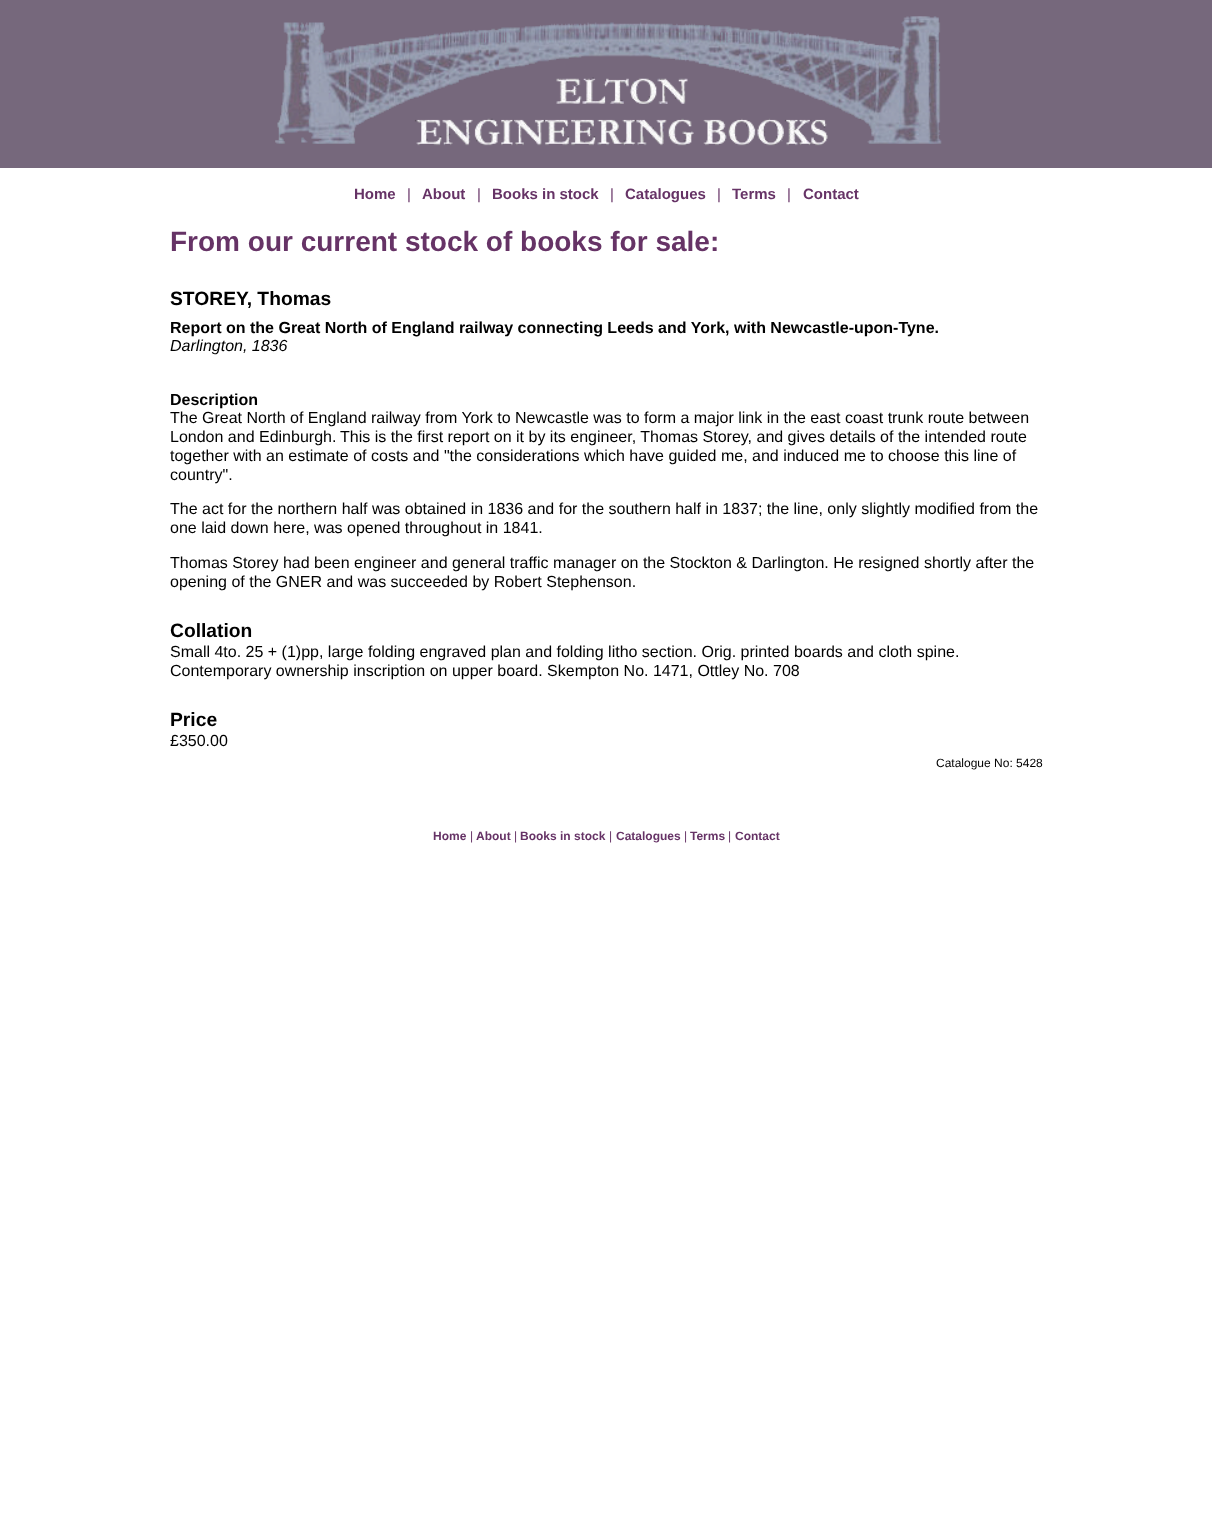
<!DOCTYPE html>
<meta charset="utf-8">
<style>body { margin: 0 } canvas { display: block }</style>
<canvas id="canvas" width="1212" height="1516"></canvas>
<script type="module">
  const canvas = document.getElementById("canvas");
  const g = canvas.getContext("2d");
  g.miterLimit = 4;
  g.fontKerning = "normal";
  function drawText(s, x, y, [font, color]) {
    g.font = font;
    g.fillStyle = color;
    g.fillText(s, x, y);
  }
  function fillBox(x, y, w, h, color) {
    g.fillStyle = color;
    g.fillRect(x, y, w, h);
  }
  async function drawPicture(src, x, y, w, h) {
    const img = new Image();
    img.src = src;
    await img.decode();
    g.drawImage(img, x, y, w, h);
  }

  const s1 = ["bold 15px Liberation Sans", "#663366"];
  const s2 = ["15px Liberation Sans", "#663366"];
  const s3 = ["bold 28px Liberation Sans", "#663366"];
  const s4 = ["bold 19.25px Liberation Sans", "#000000"];
  const s5 = ["bold 16px Liberation Sans", "#000000"];
  const s6 = ["italic 16px Liberation Sans", "#000000"];
  const s7 = ["16px Liberation Sans", "#000000"];
  const s8 = ["12px Liberation Sans", "#000000"];
  const s9 = ["bold 12px Liberation Sans", "#663366"];
  const s10 = ["12px Liberation Sans", "#663366"];

  fillBox(0, 0, 1212, 1516, "#FFFFFF");
  fillBox(0, 0, 1212, 168, "#76687C");
  await drawPicture("pic1.png", 275, 16, 667, 130);
  drawText("Home", 354, 199, s1);
  drawText("|", 407, 199, s2);
  drawText("About", 422, 199, s1);
  drawText("|", 477, 199, s2);
  drawText("Books in stock", 492, 199, s1);
  drawText("|", 610, 199, s2);
  drawText("Catalogues", 625, 199, s1);
  drawText("|", 717, 199, s2);
  drawText("Terms", 732, 199, s1);
  drawText("|", 787, 199, s2);
  drawText("Contact", 803, 199, s1);
  drawText("From our current stock of books for sale:", 170, 251, s3);
  drawText("STOREY, Thomas", 170, 305, s4);
  drawText("Report on the Great North of England railway connecting Leeds and York, with Newcastle-upon-Tyne.", 170, 333, s5);
  drawText("Darlington, 1836", 170, 351, s6);
  drawText("Description", 170, 405, s5);
  drawText("The Great North of England railway from York to Newcastle was to form a major link in the east coast trunk route between", 170, 423, s7);
  drawText("London and Edinburgh.", 170, 442, s7);
  drawText("This is the first report on it by its engineer, Thomas Storey, and gives details of the intended route", 340, 442, s7);
  drawText("together with an estimate of costs and \"the considerations which have guided me, and induced me to choose this line of", 170, 461, s7);
  drawText("country\".", 170, 480, s7);
  drawText("The act for the northern half was obtained in 1836 and for the southern half in 1837; the line, only slightly modified from the", 170, 514, s7);
  drawText("one laid down here, was opened throughout in 1841.", 170, 533, s7);
  drawText("Thomas Storey had been engineer and general traffic manager on the Stockton & Darlington. He resigned shortly after the", 170, 568, s7);
  drawText("opening of the GNER and was succeeded by Robert Stephenson.", 170, 587, s7);
  drawText("Collation", 170, 637, s4);
  drawText("Small 4to. 25 + (1)pp, large folding engraved plan and folding litho section. Orig. printed boards and cloth spine.", 170, 657, s7);
  drawText("Contemporary ownership inscription on upper board. Skempton No. 1471, Ottley No. 708", 170, 676, s7);
  drawText("Price", 170, 726, s4);
  drawText("£350.00", 170, 746, s7);
  drawText("Catalogue No: 5428", 936, 767, s8);
  drawText("Home", 433, 840, s9);
  drawText("|", 470, 840, s10);
  drawText("About", 476, 840, s9);
  drawText("|", 514, 840, s10);
  drawText("Books in stock", 520, 840, s9);
  drawText("|", 609, 840, s10);
  drawText("Catalogues", 616, 840, s9);
  drawText("|", 684, 840, s10);
  drawText("Terms", 690, 840, s9);
  drawText("|", 728, 840, s10);
  drawText("Contact", 735, 840, s9);
</script>
